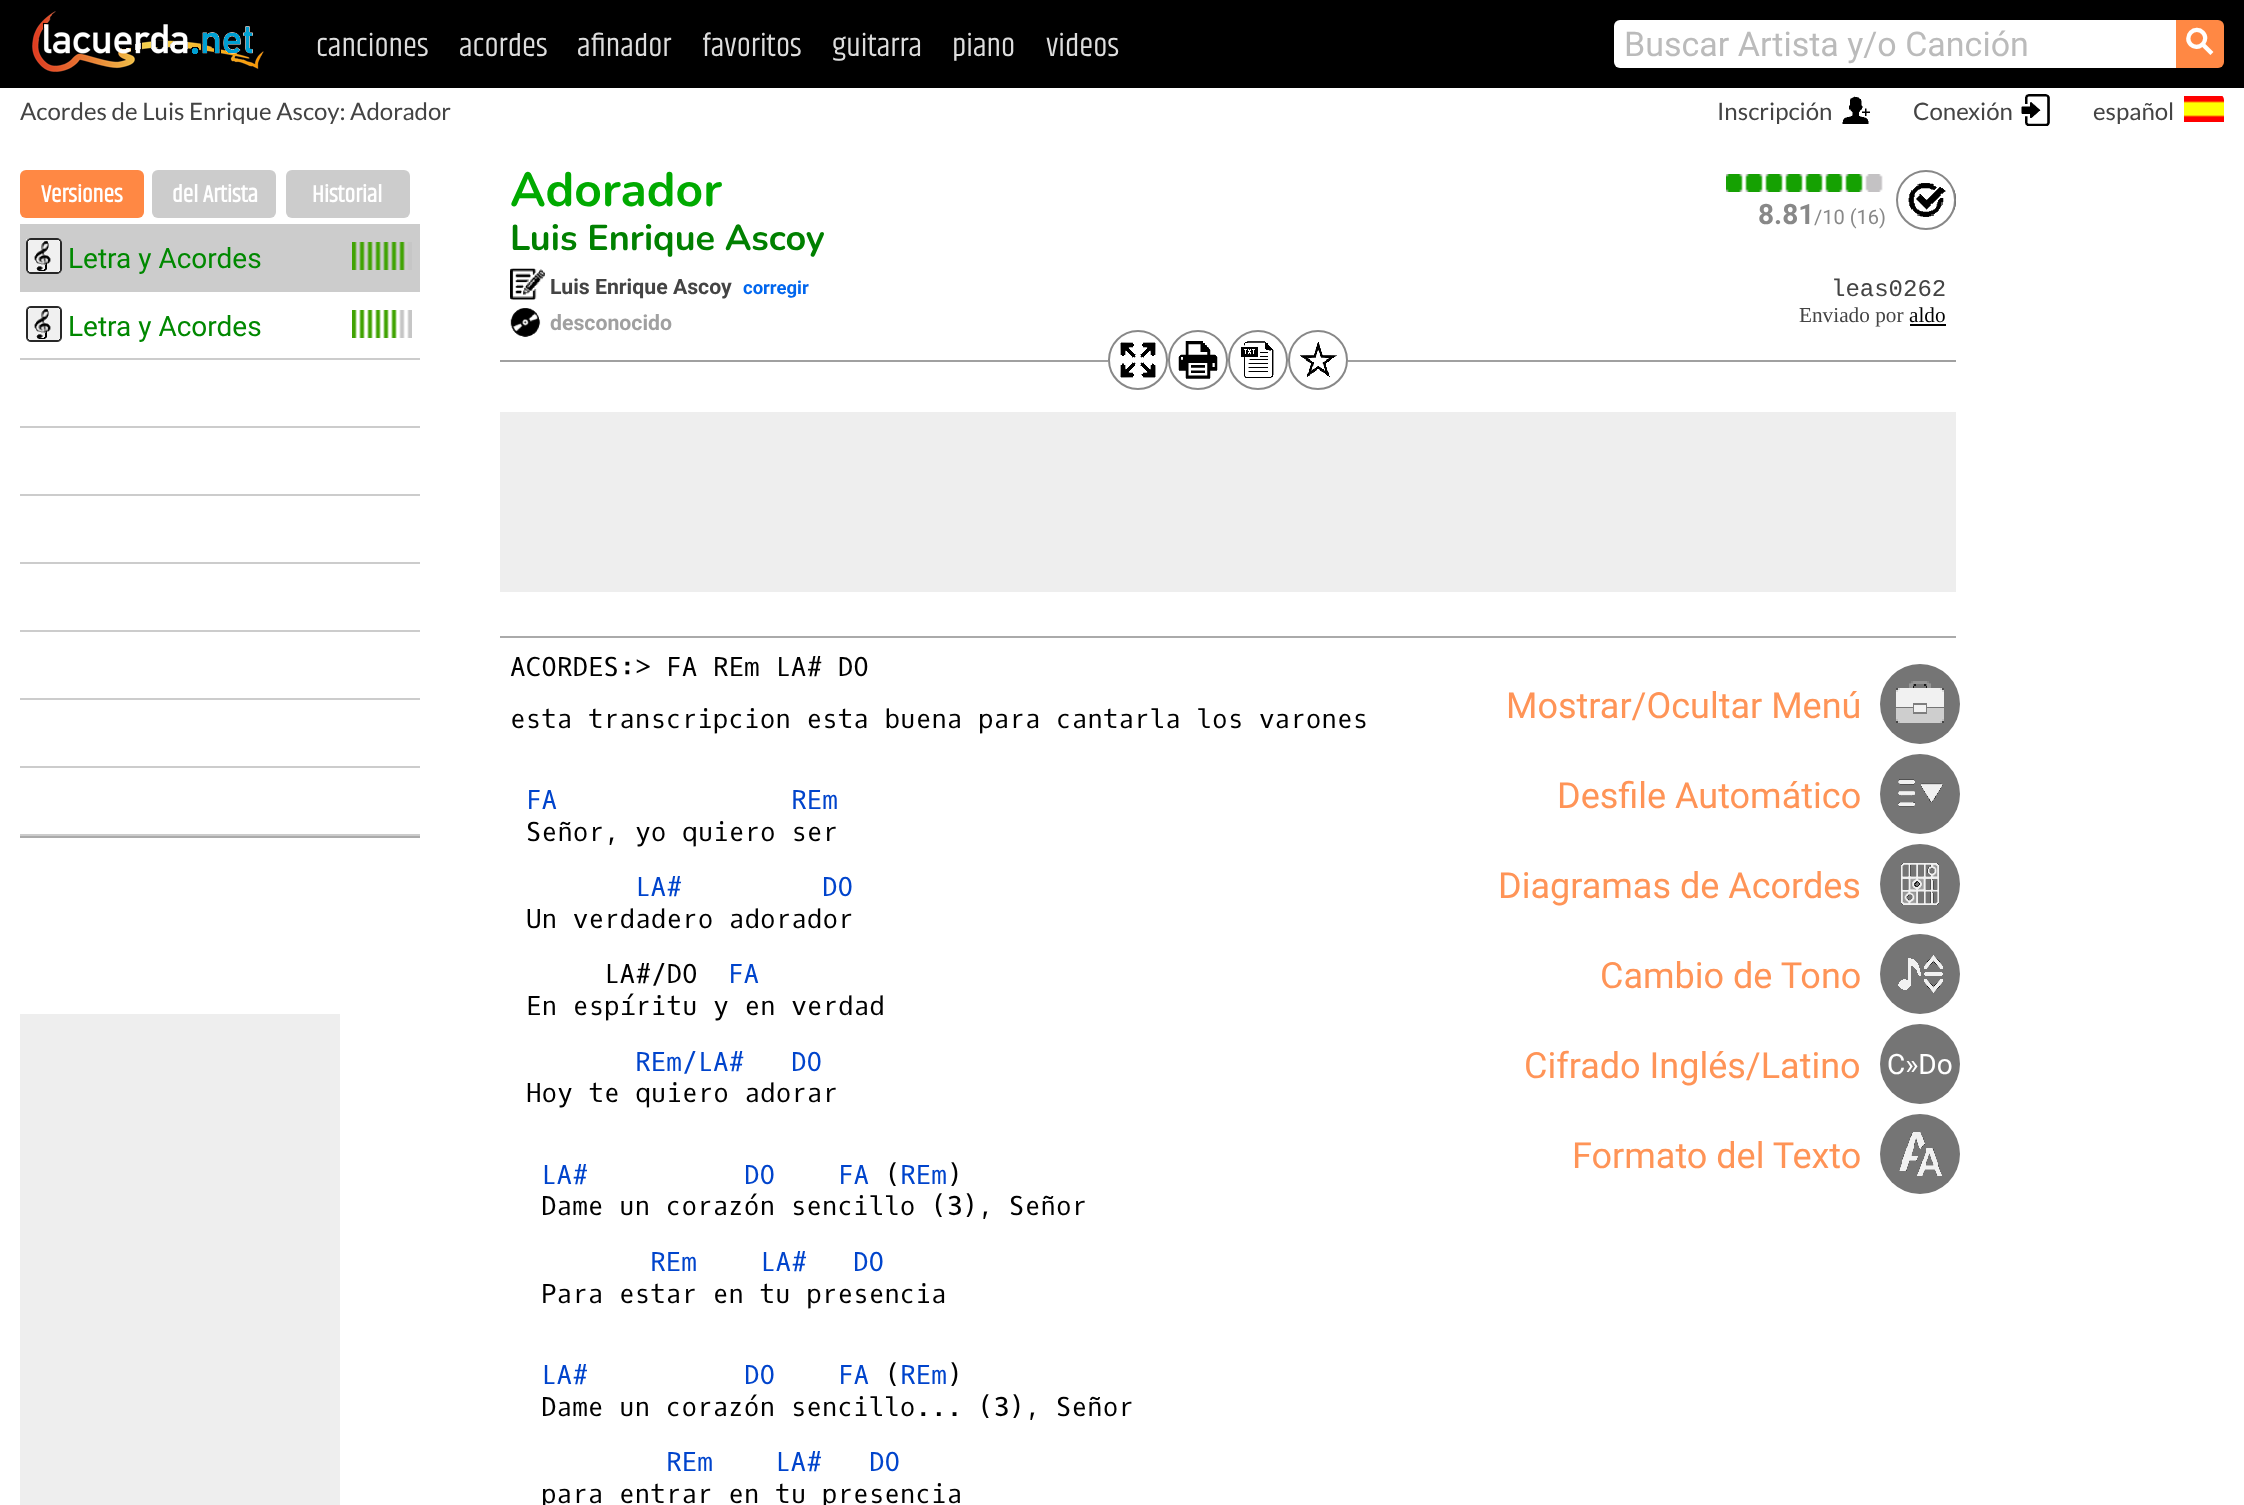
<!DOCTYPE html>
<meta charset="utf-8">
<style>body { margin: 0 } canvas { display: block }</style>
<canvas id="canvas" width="2244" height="1505"></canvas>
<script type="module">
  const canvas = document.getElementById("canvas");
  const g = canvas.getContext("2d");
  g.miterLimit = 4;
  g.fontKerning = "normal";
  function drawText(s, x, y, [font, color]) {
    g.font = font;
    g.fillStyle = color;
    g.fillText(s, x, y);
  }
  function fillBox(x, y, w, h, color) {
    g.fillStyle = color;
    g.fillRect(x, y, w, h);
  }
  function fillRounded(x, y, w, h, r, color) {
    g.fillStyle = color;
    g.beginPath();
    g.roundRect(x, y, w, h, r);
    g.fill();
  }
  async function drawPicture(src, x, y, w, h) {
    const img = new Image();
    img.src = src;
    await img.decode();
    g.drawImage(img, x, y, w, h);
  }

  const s1 = ["32px Khand", "#DDDDDD"];
  const s2 = ["34px Roboto", "#BBBBBB"];
  const s3 = ["24px Lato", "#444444"];
  const s4 = ["bold 24px Khand", "#FFFFFF"];
  const s5 = ["28px Roboto", "#008800"];
  const s6 = ["bold 48px Nunito", "#00AA00"];
  const s7 = ["bold 36px Nunito", "#008000"];
  const s8 = ["bold 28px Roboto", "#888888"];
  const s9 = ["20px Roboto", "#888888"];
  const s10 = ["bold 21.25px Roboto", "#444444"];
  const s11 = ["bold 18.5px Roboto", "#0066EE"];
  const s12 = ["bold 21.25px Roboto", "#A0A0A0"];
  const s13 = ["24px Liberation Mono", "#444444"];
  const s14 = ["21.25px Liberation Serif", "#444444"];
  const s15 = ["21.25px Liberation Serif", "#000000"];
  const s16 = ["26px Oxygen Mono", "#000000"];
  const s17 = ["26px Oxygen Mono", "#0044CC"];
  const s18 = ["36px Roboto", "#FF9457"];
  const s19 = ["28px Roboto", "#FFFFFF"];

  fillBox(0, 0, 2244, 1505, "#FFFFFF");
  fillBox(0, 0, 2244, 88, "#000000");
  await drawPicture("pic1.png", 32, 11, 232, 61);
  drawText("canciones", 316, 56, s1);
  drawText("acordes", 459, 56, s1);
  drawText("afinador", 577, 56, s1);
  drawText("favoritos", 702, 56, s1);
  drawText("guitarra", 832, 56, s1);
  drawText("piano", 952, 56, s1);
  drawText("videos", 1046, 56, s1);
  g.fillStyle = "#FFFFFF";
  g.beginPath();
  g.roundRect(1614, 20, 562, 48, [6, 0, 0, 6]);
  g.fill();
  drawText("Buscar Artista y/o Canción", 1624, 56, s2);
  g.fillStyle = "#FF8844";
  g.beginPath();
  g.roundRect(2176, 20, 48, 48, [0, 6, 6, 0]);
  g.fill();
  g.font = "bold 36px DejaVu Sans";
  g.fillStyle = "#FFFFFF";
  g.save();
  g.translate(2199, 60);
  g.rotate(-45 * Math.PI / 180);
  g.fillText("⚲", 0, 0);
  g.restore();
  drawText("Acordes de Luis Enrique Ascoy: Adorador", 20, 120, s3);
  await drawPicture("pic2.png", 1842, 96, 28, 28);
  drawText("Inscripción", 1717, 120, s3);
  await drawPicture("pic3.png", 2021, 94, 29, 32);
  drawText("Conexión", 1913, 120, s3);
  await drawPicture("pic4.png", 2184, 96, 40, 26);
  drawText("español", 2093, 120, s3);
  fillRounded(20, 170, 124, 48, 6, "#FF8844");
  drawText("Versiones", 41, 202, s4);
  fillRounded(152, 170, 124, 48, 6, "#CCCCCC");
  drawText("del Artista", 172, 202, s4);
  fillRounded(286, 170, 124, 48, 6, "#CCCCCC");
  drawText("Historial", 312, 202, s4);
  fillBox(20, 836, 400, 2, "#AAAAAA");
  fillBox(20, 224, 400, 68, "#CCCCCC");
  await drawPicture("pic5.png", 26, 238, 36, 36);
  drawText("Letra y Acordes", 68, 268, s5);
  await drawPicture("pic6.png", 352, 242, 60, 28);
  fillBox(20, 358, 400, 2, "#CCCCCC");
  await drawPicture("pic7.png", 26, 306, 36, 36);
  drawText("Letra y Acordes", 68, 336, s5);
  await drawPicture("pic8.png", 352, 310, 60, 28);
  fillBox(20, 426, 400, 2, "#CCCCCC");
  fillBox(20, 494, 400, 2, "#CCCCCC");
  fillBox(20, 562, 400, 2, "#CCCCCC");
  fillBox(20, 630, 400, 2, "#CCCCCC");
  fillBox(20, 698, 400, 2, "#CCCCCC");
  fillBox(20, 766, 400, 2, "#CCCCCC");
  fillBox(20, 834, 400, 2, "#CCCCCC");
  fillBox(20, 1014, 320, 491, "#EEEEEE");
  fillBox(500, 360, 1456, 2, "#A0A0A0");
  drawText("Adorador", 510, 206, s6);
  drawText("Luis Enrique Ascoy", 510, 250, s7);
  await drawPicture("pic9.png", 1726, 174, 157, 18);
  drawText("8.81", 1758, 224, s8);
  drawText("/10 (16)", 1814, 224, s9);
  await drawPicture("pic10.png", 1908, 183, 48, 34);
  g.beginPath();
  g.arc(1926, 200, 29, 0, Math.PI * 2);
  g.strokeStyle = "#888888";
  g.lineWidth = 2;
  g.stroke();
  await drawPicture("pic11.png", 510, 268, 35, 32);
  drawText("Luis Enrique Ascoy", 550, 294, s10);
  drawText("corregir", 743, 294, s11);
  await drawPicture("pic12.png", 510, 308, 31, 29);
  drawText("desconocido", 550, 330, s12);
  drawText("leas0262", 1831, 296, s13);
  drawText("Enviado por", 1799, 322, s14);
  drawText("aldo", 1909, 322, s15);
  fillBox(1910, 324, 36, 2, "#000000");
  g.fillStyle = "#FFFFFF";
  g.beginPath();
  g.arc(1138, 360, 30, 0, Math.PI * 2);
  g.fill();
  await drawPicture("pic13.png", 1120, 342, 36, 36);
  g.beginPath();
  g.arc(1138, 360, 29, 0, Math.PI * 2);
  g.stroke();
  g.beginPath();
  g.arc(1198, 360, 30, 0, Math.PI * 2);
  g.fill();
  await drawPicture("pic14.png", 1178, 341, 40, 38);
  g.beginPath();
  g.arc(1198, 360, 29, 0, Math.PI * 2);
  g.stroke();
  g.beginPath();
  g.arc(1258, 360, 30, 0, Math.PI * 2);
  g.fill();
  await drawPicture("pic15.png", 1241, 341, 33, 37);
  g.beginPath();
  g.arc(1258, 360, 29, 0, Math.PI * 2);
  g.stroke();
  g.beginPath();
  g.arc(1318, 360, 30, 0, Math.PI * 2);
  g.fill();
  await drawPicture("pic16.png", 1300, 342, 37, 35);
  g.beginPath();
  g.arc(1318, 360, 29, 0, Math.PI * 2);
  g.stroke();
  fillBox(500, 412, 1456, 180, "#EEEEEE");
  fillBox(500, 636, 1456, 2, "#AAAAAA");
  drawText("ACORDES:> FA REm LA# DO", 510, 676, s16);
  drawText("esta transcripcion esta buena para cantarla los varones", 510, 728, s16);
  drawText("FA", 526, 809, s17);
  drawText("REm", 791, 809, s17);
  drawText("Señor, yo quiero ser", 526, 841, s16);
  drawText("LA#", 635, 896, s17);
  drawText("DO", 822, 896, s17);
  drawText("Un verdadero adorador", 526, 928, s16);
  drawText("LA#/DO", 604, 983, s16);
  drawText("FA", 728, 983, s17);
  drawText("En espíritu y en verdad", 526, 1015, s16);
  drawText("REm/LA#", 635, 1071, s17);
  drawText("DO", 791, 1071, s17);
  drawText("Hoy te quiero adorar", 526, 1102, s16);
  drawText("LA#", 541, 1184, s17);
  drawText("DO", 744, 1184, s17);
  drawText("FA", 838, 1184, s17);
  drawText("(", 885, 1184, s16);
  drawText("REm", 900, 1184, s17);
  drawText(")", 947, 1184, s16);
  drawText("Dame un corazón sencillo (3), Señor", 541, 1215, s16);
  drawText("REm", 650, 1271, s17);
  drawText("LA#", 760, 1271, s17);
  drawText("DO", 853, 1271, s17);
  drawText("Para estar en tu presencia", 541, 1303, s16);
  drawText("LA#", 541, 1384, s17);
  drawText("DO", 744, 1384, s17);
  drawText("FA", 838, 1384, s17);
  drawText("(", 885, 1384, s16);
  drawText("REm", 900, 1384, s17);
  drawText(")", 947, 1384, s16);
  drawText("Dame un corazón sencillo... (3), Señor", 541, 1416, s16);
  drawText("REm", 666, 1471, s17);
  drawText("LA#", 775, 1471, s17);
  drawText("DO", 869, 1471, s17);
  drawText("para entrar en tu presencia", 541, 1503, s16);
  drawText("Mostrar/Ocultar Menú", 1506, 718, s18);
  drawText("Desfile Automático", 1557, 808, s18);
  drawText("Diagramas de Acordes", 1498, 898, s18);
  drawText("Cambio de Tono", 1600, 988, s18);
  drawText("Cifrado Inglés/Latino", 1524, 1078, s18);
  drawText("Formato del Texto", 1572, 1168, s18);
  g.fillStyle = "#757575";
  g.beginPath();
  g.arc(1920, 704, 40, 0, Math.PI * 2);
  g.fill();
  await drawPicture("pic17.png", 1896, 681, 48, 42);
  g.beginPath();
  g.arc(1920, 794, 40, 0, Math.PI * 2);
  g.fill();
  await drawPicture("pic18.png", 1898, 779, 45, 28);
  g.beginPath();
  g.arc(1920, 884, 40, 0, Math.PI * 2);
  g.fill();
  await drawPicture("pic19.png", 1901, 863, 38, 42);
  g.beginPath();
  g.arc(1920, 974, 40, 0, Math.PI * 2);
  g.fill();
  await drawPicture("pic20.png", 1898, 955, 45, 38);
  g.beginPath();
  g.arc(1920, 1064, 40, 0, Math.PI * 2);
  g.fill();
  drawText("C»Do", 1887, 1074, s19);
  g.fillStyle = "#757575";
  g.beginPath();
  g.arc(1920, 1154, 40, 0, Math.PI * 2);
  g.fill();
  await drawPicture("pic21.png", 1899, 1132, 43, 44);
</script>
